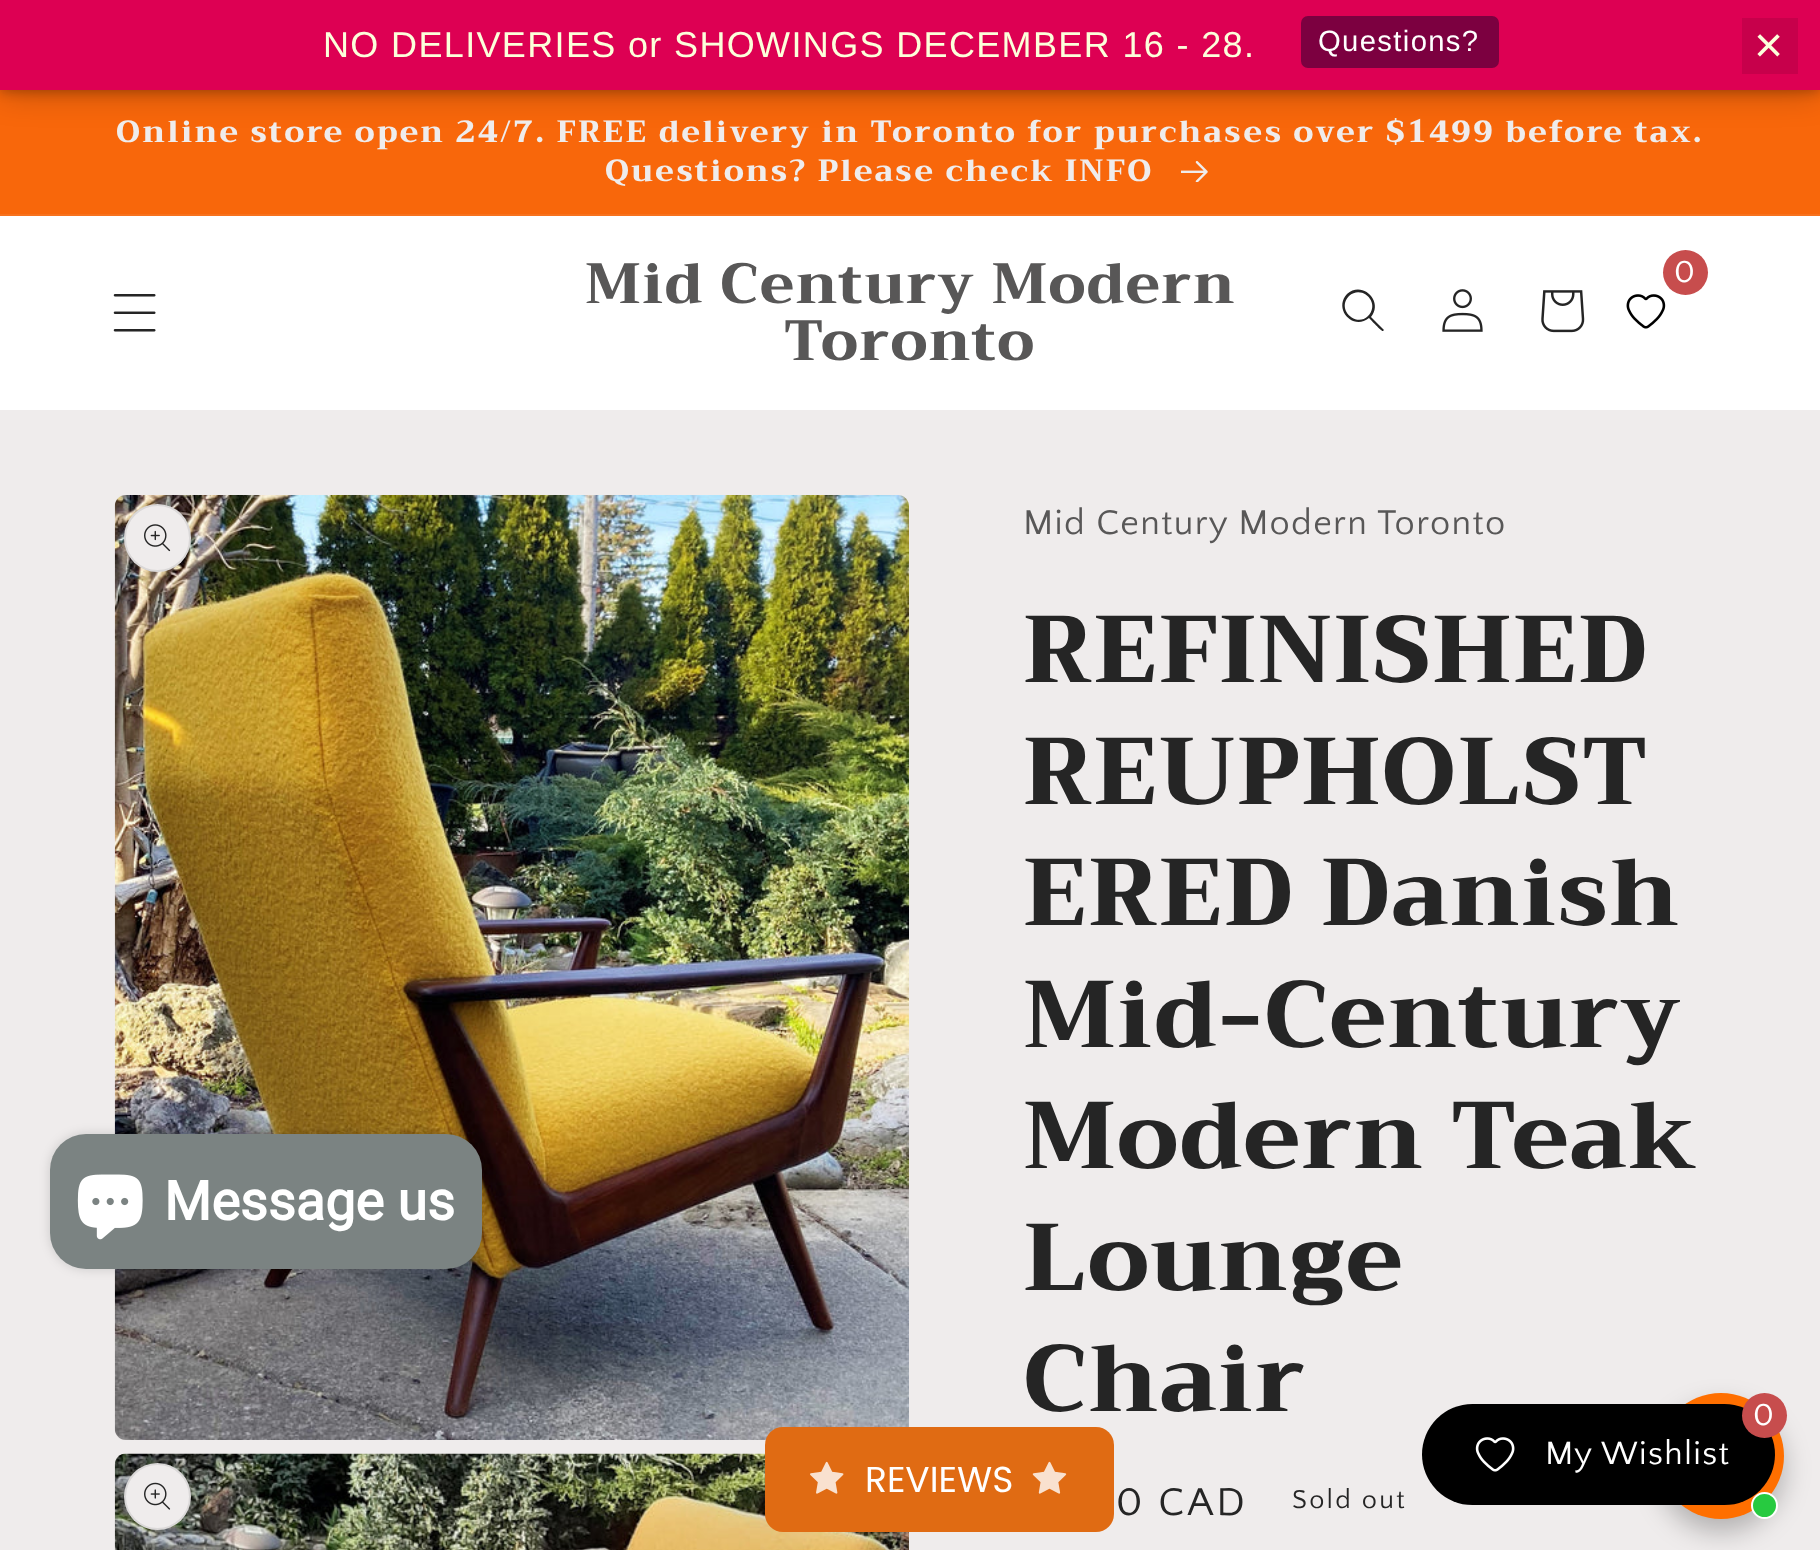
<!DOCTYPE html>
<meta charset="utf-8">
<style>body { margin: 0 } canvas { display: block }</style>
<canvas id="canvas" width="1820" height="1550"></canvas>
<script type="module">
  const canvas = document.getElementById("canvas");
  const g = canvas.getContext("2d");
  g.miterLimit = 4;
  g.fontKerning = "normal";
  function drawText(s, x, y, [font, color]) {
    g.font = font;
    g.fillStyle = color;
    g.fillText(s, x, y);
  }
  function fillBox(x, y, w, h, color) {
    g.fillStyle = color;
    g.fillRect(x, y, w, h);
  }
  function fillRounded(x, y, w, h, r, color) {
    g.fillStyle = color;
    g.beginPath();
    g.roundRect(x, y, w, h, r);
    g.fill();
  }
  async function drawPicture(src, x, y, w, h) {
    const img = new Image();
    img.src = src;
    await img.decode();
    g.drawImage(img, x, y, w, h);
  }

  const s1 = ["36px Liberation Sans", "#FCFFDB"];
  const s2 = ["29.25px Liberation Sans", "#FFFFFF"];
  const s3 = ["50px Liberation Sans", "#FCFFDB"];
  const s4 = ["800 30.7px Trirong", "#EFECEC"];
  const s5 = ["800 56.75px Trirong", "#585757"];
  const s6 = ["32px Quattrocento Sans", "#FFFFFF"];
  const s7 = ["bold 54px Roboto", "#FFFFFF"];
  const s8 = ["36px Quattrocento Sans", "#585757"];
  const s9 = ["800 94.5px Trirong", "#252525"];
  const s10 = ["40.5px Quattrocento Sans", "#252525"];
  const s11 = ["27px Quattrocento Sans", "#252525"];
  const s12 = ["33.75px Quattrocento Sans", "#FFFFFF"];
  const s13 = ["36px Poppins", "#FFFFFF"];

  fillBox(0, 0, 1820, 1550, "#EFECEC");
  fillBox(0, 90, 1820, 124, "#F8670B");
  g.fillStyle = "rgba(0, 0, 0, 0.2)";
  g.filter = "blur(5.5px)";
  g.beginPath();
  g.rect(0, 2, 1820, 90);
  g.fill();
  g.filter = "none";
  g.fillStyle = "rgba(0, 0, 0, 0.3)";
  g.filter = "blur(17px)";
  g.beginPath();
  g.rect(0, 0, 1820, 90);
  g.fill();
  g.filter = "none";
  fillBox(0, 0, 1820, 90, "#DD0053");
  g.letterSpacing = "1.35px";
  drawText("NO DELIVERIES or SHOWINGS DECEMBER 16 - 28.", 323, 57, s1);
  fillRounded(1301, 16, 198, 52, 7, "#7C0040");
  drawText("Questions?", 1318, 51, s2);
  fillBox(1742, 18, 56, 56, "#C7004B");
  drawText("×", 1754, 62, s3);
  fillBox(0, 214, 1820, 2, "#F7721D");
  g.letterSpacing = "2.25px";
  drawText("Online store open 24/7. FREE delivery in Toronto for purchases over $1499 before tax.", 116, 142, s4);
  drawText("Questions? Please check INFO", 605, 181, s4);
  await drawPicture("pic1.png", 1181, 161, 27, 21);
  fillBox(0, 216, 1820, 194, "#FFFFFF");
  await drawPicture("pic2.png", 113, 294, 43, 38);
  g.letterSpacing = "1.4px";
  drawText("Mid Century Modern", 585, 303, s5);
  drawText("Toronto", 784, 360, s5);
  await drawPicture("pic3.png", 1626, 294, 40, 35);
  g.fillStyle = "#C74D4D";
  g.beginPath();
  g.arc(1685.5, 272.5, 22.5, 0, Math.PI * 2);
  g.fill();
  g.letterSpacing = "1.35px";
  drawText("0", 1674, 282, s6);
  g.fillStyle = "#252525";
  g.beginPath();
  g.moveTo(1368, 316);
  g.bezierCurveTo(1356, 328, 1336, 309, 1349, 296);
  g.bezierCurveTo(1362, 284, 1381, 303, 1368, 316);
  g.closePath();
  g.moveTo(1369, 318);
  g.bezierCurveTo(1353, 331, 1333, 309, 1347, 294);
  g.bezierCurveTo(1362, 280, 1384, 301, 1371, 317);
  g.lineTo(1384, 330);
  g.lineTo(1383, 331);
  g.bezierCurveTo(1382, 332, 1371, 320, 1369, 318);
  g.closePath();
  g.fill("evenodd");
  await drawPicture("pic4.png", 1442, 289, 41, 43);
  await drawPicture("pic5.png", 1541, 290, 44, 43);
  await drawPicture("pic7.png", 114, 495, 795, 945);
  g.fillStyle = "rgba(0, 0, 0, 0.15)";
  g.filter = "blur(5.5px)";
  g.beginPath();
  g.roundRect(50, 1134, 432, 135, 36);
  g.fill();
  g.filter = "none";
  fillRounded(50, 1134, 432, 135, 36, "#7B8382");
  await drawPicture("pic6.png", 77, 1174, 66, 66);
  g.letterSpacing = "0px";
  drawText("Message us", 164, 1220, s7);
  fillRounded(124, 504, 67, 68, 33.5, "#EFECEC");
  g.beginPath();
  g.roundRect(125, 505, 65, 66, 32.5);
  g.strokeStyle = "rgba(37, 37, 37, 0.1)";
  g.lineWidth = 2;
  g.stroke();
  await drawPicture("pic8.png", 144, 524, 27, 28);
  await drawPicture("pic9.png", 114, 1453, 795, 97);
  g.beginPath();
  g.arc(157.5, 1496.5, 33.5, 0, Math.PI * 2);
  g.fill();
  g.beginPath();
  g.arc(157.5, 1496.5, 32.5, 0, Math.PI * 2);
  g.stroke();
  await drawPicture("pic10.png", 144, 1482, 27, 28);
  g.letterSpacing = "1.35px";
  drawText("Mid Century Modern Toronto", 1023, 534, s8);
  g.letterSpacing = "1.4px";
  drawText("REFINISHED", 1023, 682, s9);
  drawText("REUPHOLST", 1023, 804, s9);
  drawText("ERED Danish", 1023, 925, s9);
  drawText("Mid-Century", 1023, 1047, s9);
  drawText("Modern Teak", 1023, 1168, s9);
  drawText("Lounge", 1023, 1290, s9);
  drawText("Chair", 1023, 1411, s9);
  g.letterSpacing = "3px";
  drawText("0 CAD", 1116, 1515, s10);
  g.letterSpacing = "2.25px";
  drawText("Sold out", 1292, 1508, s11);
  g.fillStyle = "rgba(0, 0, 0, 0.25)";
  g.filter = "blur(13.5px)";
  g.beginPath();
  g.roundRect(1658, 1406, 126, 126, 63);
  g.fill();
  g.filter = "none";
  g.fillStyle = "#FF6F00";
  g.beginPath();
  g.arc(1721, 1456, 63, 0, Math.PI * 2);
  g.fill();
  g.fillStyle = "#27CA40";
  g.beginPath();
  g.arc(1764.5, 1505.5, 12.5, 0, Math.PI * 2);
  g.fill();
  g.strokeStyle = "#FFFFFF";
  g.stroke();
  fillRounded(1422, 1404, 353, 101, 50.5, "#000000");
  g.fillStyle = "#C74D4D";
  g.beginPath();
  g.arc(1764.5, 1415.5, 22.5, 0, Math.PI * 2);
  g.fill();
  g.letterSpacing = "1.35px";
  drawText("0", 1753, 1425, s6);
  await drawPicture("pic11.png", 1475, 1437, 40, 35);
  drawText("My Wishlist", 1545, 1464, s12);
  fillRounded(765, 1427, 349, 105, 18, "#E06B13");
  await drawPicture("pic12.png", 810, 1461, 34, 33);
  g.letterSpacing = "0px";
  drawText("REVIEWS", 865, 1492, s13);
  await drawPicture("pic13.png", 1032, 1461, 35, 33);
</script>
